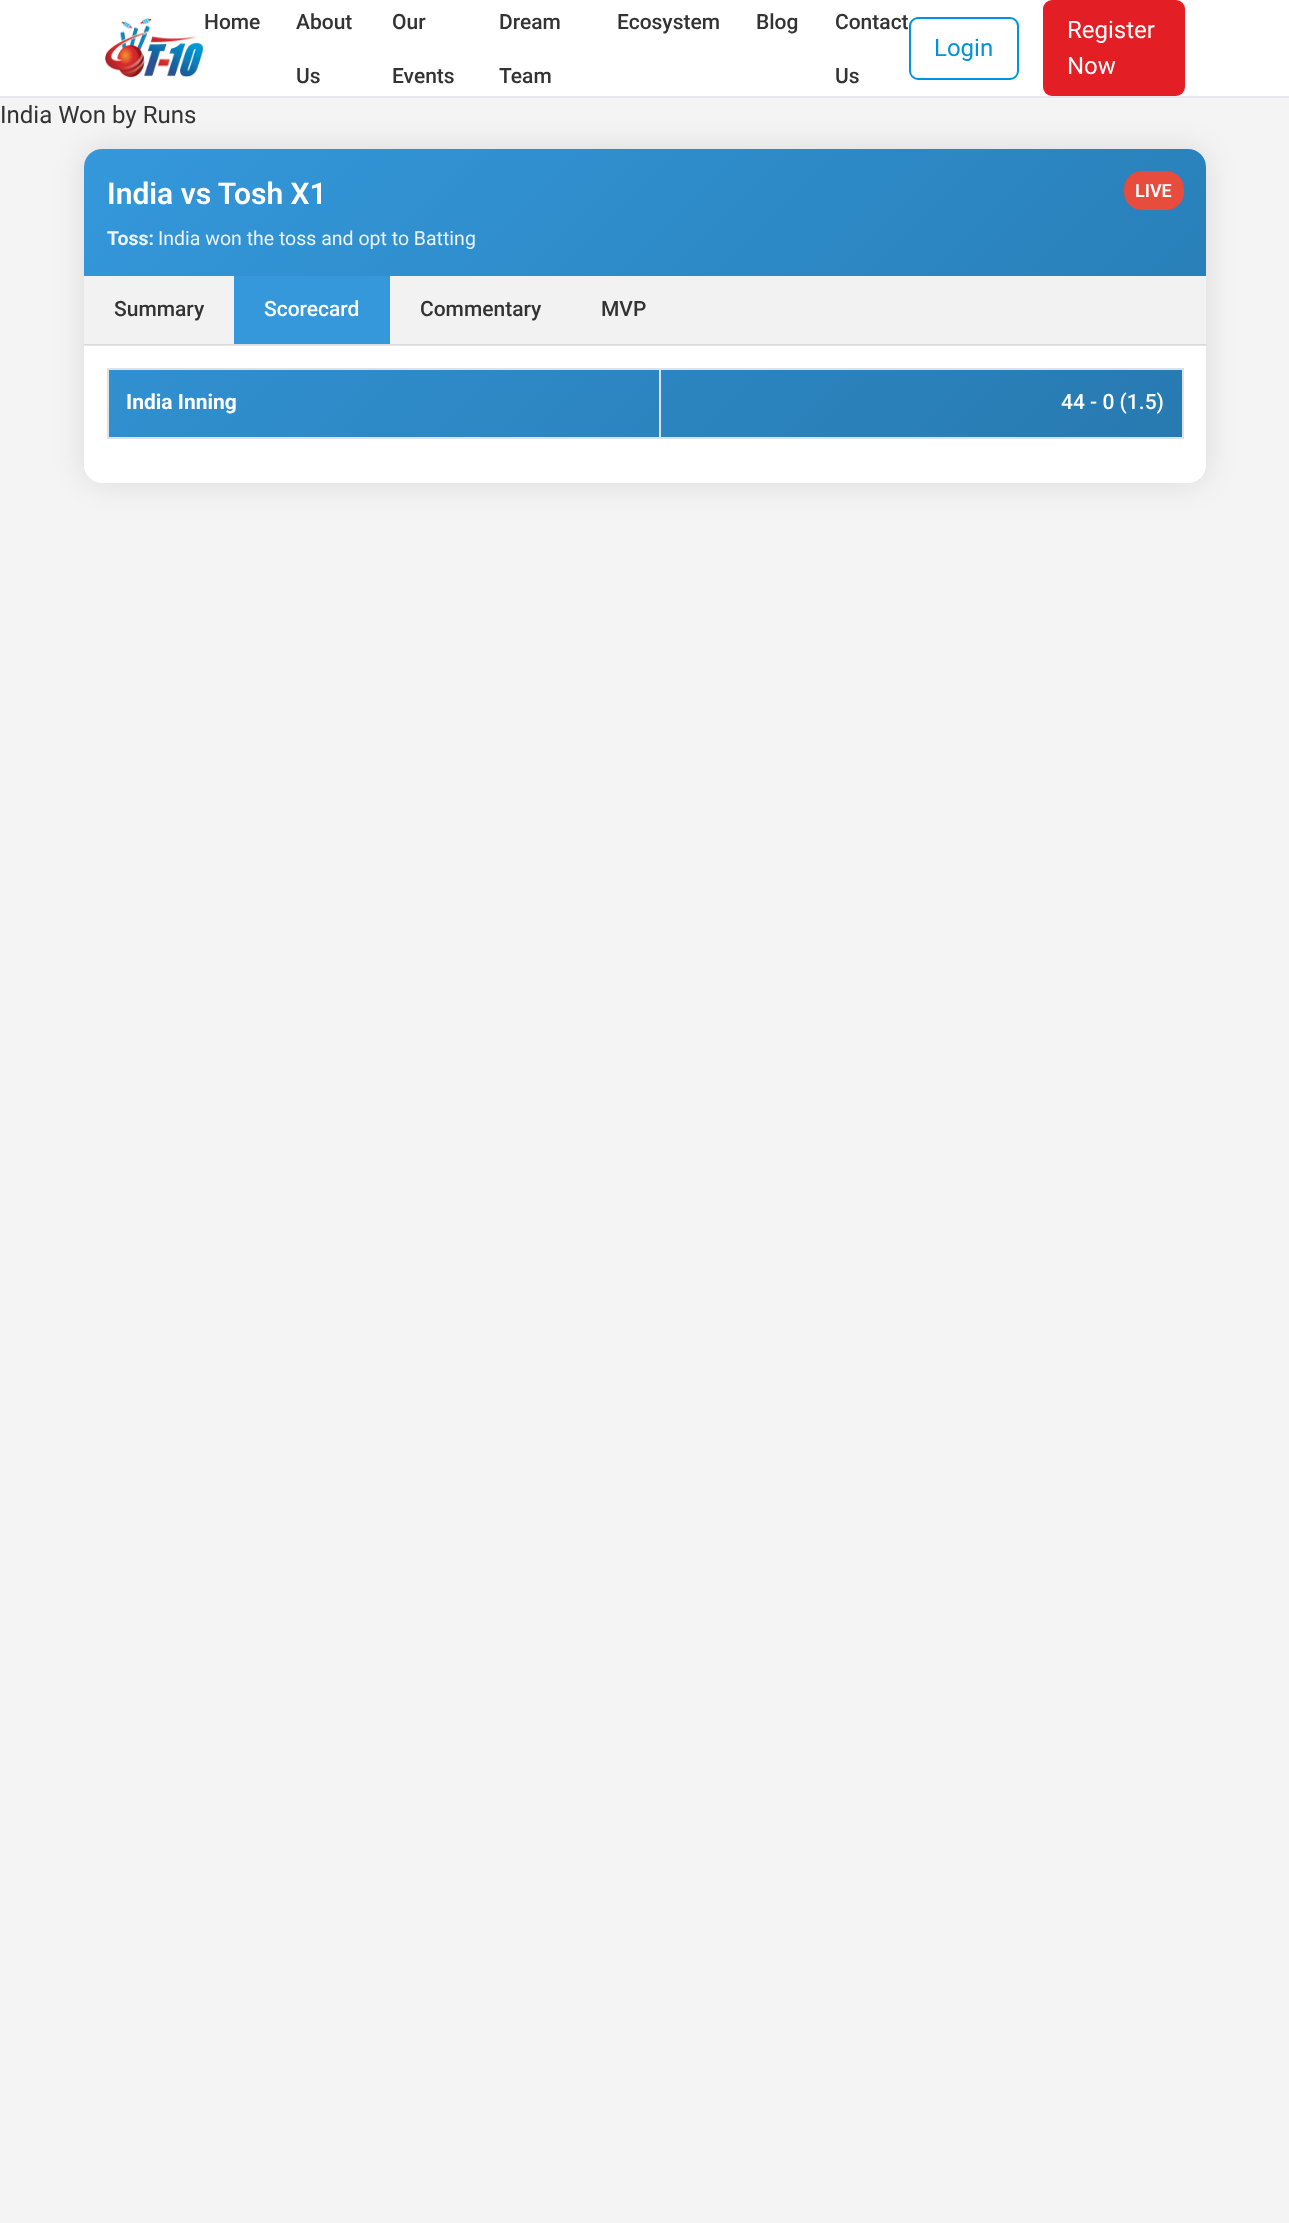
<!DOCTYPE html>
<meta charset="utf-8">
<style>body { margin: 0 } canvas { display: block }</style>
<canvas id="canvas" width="1289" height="2223"></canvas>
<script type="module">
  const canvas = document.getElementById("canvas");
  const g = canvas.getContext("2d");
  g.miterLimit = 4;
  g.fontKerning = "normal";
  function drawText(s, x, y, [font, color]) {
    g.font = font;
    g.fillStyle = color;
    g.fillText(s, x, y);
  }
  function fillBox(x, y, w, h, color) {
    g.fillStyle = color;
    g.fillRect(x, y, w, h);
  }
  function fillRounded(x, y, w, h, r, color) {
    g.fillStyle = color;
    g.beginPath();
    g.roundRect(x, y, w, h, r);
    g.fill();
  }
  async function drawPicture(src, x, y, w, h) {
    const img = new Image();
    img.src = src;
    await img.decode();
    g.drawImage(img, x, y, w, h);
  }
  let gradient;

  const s1 = ["500 21px Roboto", "#333333"];
  const s2 = ["24px Roboto", "#0093DD"];
  const s3 = ["24px Roboto", "#FFFFFF"];
  const s4 = ["24px Roboto", "#333333"];
  const s5 = ["600 30px Roboto", "#FFFFFF"];
  const s6 = ["600 18px Roboto", "#FFFFFF"];
  const s7 = ["bold 19.5px Roboto", "#EBF4FB"];
  const s8 = ["19.5px Roboto", "#EBF4FB"];
  const s9 = ["500 21px Roboto", "#FFFFFF"];
  const s10 = ["bold 21px Roboto", "#FFFFFF"];

  fillBox(0, 0, 1289, 2223, "#F4F4F4");
  fillBox(0, 0, 1289, 96, "#FFFFFF");
  fillBox(0, 96, 1289, 2, "#E5E7EB");
  await drawPicture("pic1.png", 105, 18, 99, 60);
  drawText("Home", 204, 29, s1);
  drawText("About", 296, 29, s1);
  drawText("Us", 296, 83, s1);
  drawText("Our", 392, 29, s1);
  drawText("Events", 392, 83, s1);
  drawText("Dream", 499, 29, s1);
  drawText("Team", 499, 83, s1);
  drawText("Ecosystem", 617, 29, s1);
  drawText("Blog", 756, 29, s1);
  drawText("Contact", 835, 29, s1);
  drawText("Us", 835, 83, s1);
  g.beginPath();
  g.roundRect(910, 18, 108, 61, 8);
  g.strokeStyle = "#0093DD";
  g.lineWidth = 2;
  g.stroke();
  drawText("Login", 934, 56, s2);
  fillRounded(1043, 0, 142, 96, 9, "#E31E24");
  drawText("Register", 1067, 38, s3);
  drawText("Now", 1067, 74, s3);
  drawText("India Won by Runs", 0, 123, s4);
  g.fillStyle = "rgba(0, 0, 0, 0.1)";
  g.filter = "blur(15px)";
  g.beginPath();
  g.roundRect(84, 149, 1122, 334, 18);
  g.fill();
  g.filter = "none";
  fillRounded(84, 149, 1122, 334, 18, "#FFFFFF");
  fillBox(84, 345, 1122, 1, "#E6E6E6");
  gradient = g.createLinearGradient(333, -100, 957, 525);
  gradient.addColorStop(0, "#3498DB");
  gradient.addColorStop(1, "#2980B9");
  g.fillStyle = gradient;
  g.beginPath();
  g.roundRect(84, 149, 1122, 127, [18, 18, 0, 0]);
  g.fill();
  drawText("India vs Tosh X1", 107, 204, s5);
  fillRounded(1124, 171, 60, 39, 18, "#E74C3C");
  drawText("LIVE", 1135, 197, s6);
  drawText("Toss:", 107, 245, s7);
  drawText("India won the toss and opt to Batting", 158, 245, s8);
  fillBox(84, 276, 1122, 68, "#F2F2F2");
  fillBox(84, 344, 1122, 1, "#DADADA");
  drawText("Summary", 114, 316, s1);
  fillBox(234, 276, 156, 68, "#3498DB");
  drawText("Scorecard", 264, 316, s9);
  drawText("Commentary", 420, 316, s1);
  drawText("MVP", 601, 316, s1);
  gradient = g.createLinearGradient(358, 116, 932, 690);
  gradient.addColorStop(0, "#3190D0");
  gradient.addColorStop(1, "#277AB0");
  g.fillStyle = gradient;
  g.fillRect(661, 370, 521, 67);
  g.fillRect(109, 370, 550, 67);
  fillBox(659, 368, 525, 2, "#DEE2E6");
  fillBox(1182, 368, 2, 70, "#DEE2E6");
  fillBox(659, 437, 525, 2, "#DEE2E6");
  fillBox(659, 368, 2, 70, "#DEE2E6");
  fillBox(107, 368, 553, 2, "#DEE2E6");
  fillBox(107, 437, 553, 2, "#DEE2E6");
  fillBox(107, 368, 2, 70, "#DEE2E6");
  drawText("India Inning", 126, 409, s10);
  drawText("44 - 0 (1.5)", 1061, 409, s9);
</script>
